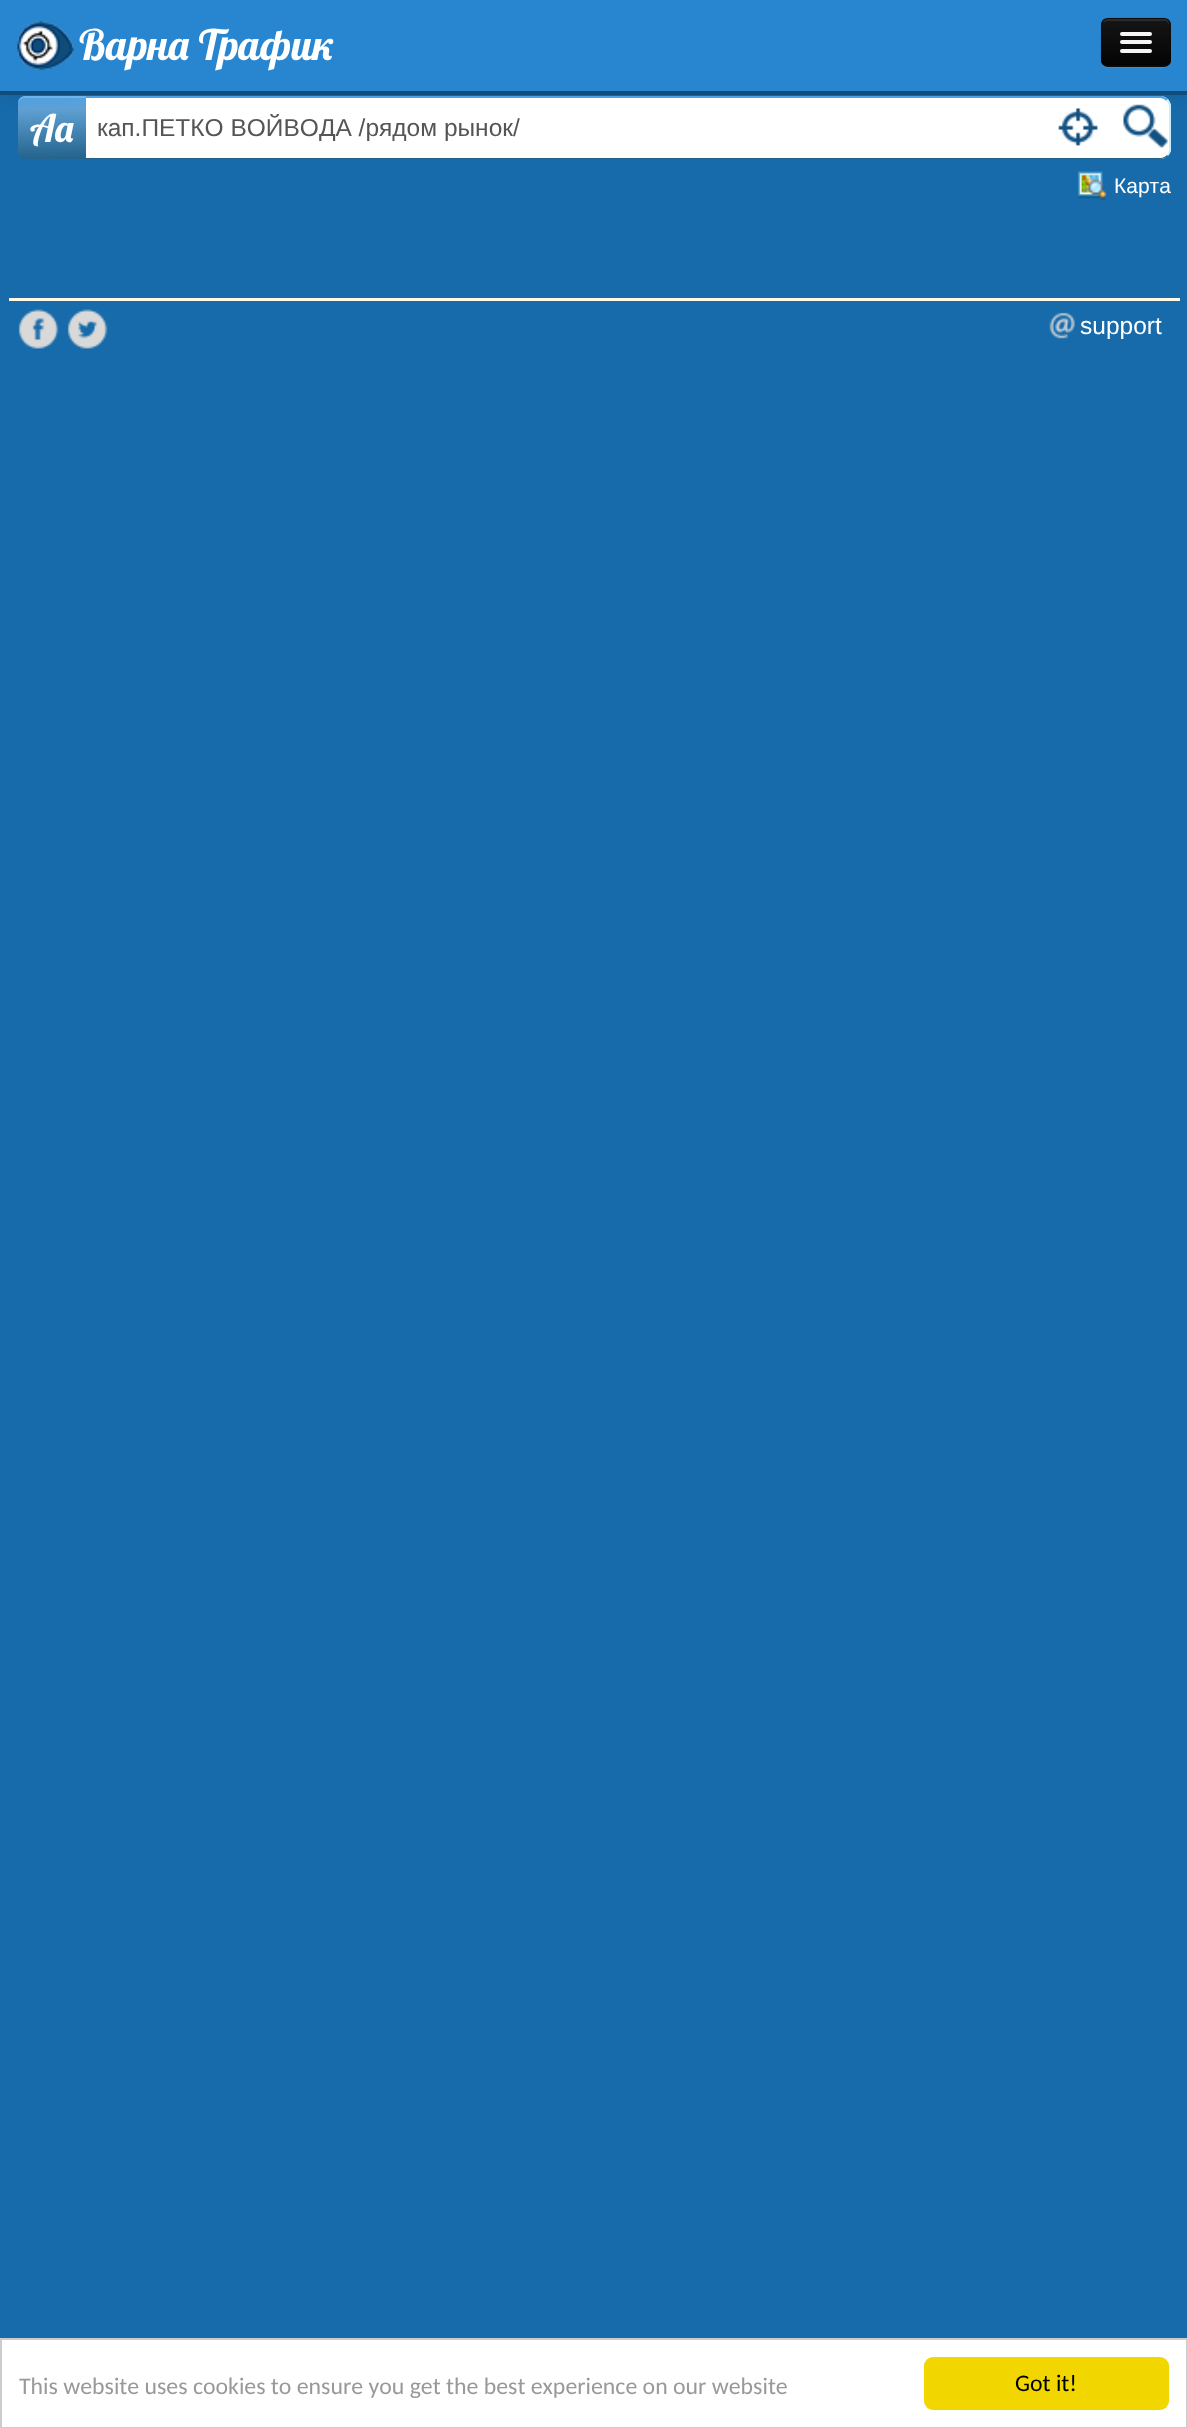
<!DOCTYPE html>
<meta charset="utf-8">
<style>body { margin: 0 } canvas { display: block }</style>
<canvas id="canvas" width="1187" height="2428"></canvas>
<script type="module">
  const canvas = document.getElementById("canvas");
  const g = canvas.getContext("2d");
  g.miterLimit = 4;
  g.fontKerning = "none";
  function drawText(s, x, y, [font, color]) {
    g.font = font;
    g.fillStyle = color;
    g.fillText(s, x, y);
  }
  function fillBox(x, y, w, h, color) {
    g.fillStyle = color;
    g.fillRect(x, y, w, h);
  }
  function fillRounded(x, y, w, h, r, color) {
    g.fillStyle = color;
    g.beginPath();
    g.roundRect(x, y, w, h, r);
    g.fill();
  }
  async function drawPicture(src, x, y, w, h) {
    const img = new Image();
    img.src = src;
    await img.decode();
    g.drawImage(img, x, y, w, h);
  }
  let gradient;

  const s1 = ["42px Lobster", "#FFFFFF"];
  const s2 = ["38px Lobster", "#FFFFFF"];
  const s3 = ["24.5px Liberation Sans", "#555555"];
  const s4 = ["21px Liberation Sans", "#FFFFFF"];
  const s5 = ["24.5px Liberation Sans", "#FFFFFF"];
  const s6 = ["23.8px Carlito", "#999999"];
  const s7 = ["23.8px Carlito", "#000000"];

  fillBox(0, 0, 1187, 2428, "#176BAB");
  g.fillStyle = "rgba(0, 0, 0, 0.1)";
  g.filter = "blur(9px)";
  g.beginPath();
  g.rect(0, 2, 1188, 94);
  g.fill();
  g.filter = "none";
  fillBox(0, 0, 1187, 91, "#2886D0");
  fillBox(0, 91, 1187, 4, "#104D7A");
  await drawPicture("pic1.png", 17, 20, 57, 50);
  g.wordSpacing = "1px";
  drawText("Варна Трафик", 79, 60, s1);
  g.fillStyle = "#388FD4";
  g.beginPath();
  g.moveTo(1101, 61);
  g.bezierCurveTo(1101, 65, 1104, 68, 1108, 68);
  g.lineTo(1155, 68);
  g.bezierCurveTo(1160, 68, 1169, 70, 1171, 62);
  g.lineTo(1171, 24);
  g.lineTo(1171, 61);
  g.lineTo(1169, 64);
  g.bezierCurveTo(1165, 68, 1158, 66, 1154, 66);
  g.lineTo(1117, 66);
  g.bezierCurveTo(1112, 66, 1103, 68, 1101, 61);
  g.closePath();
  g.fill();
  fillRounded(1101, 18, 70, 49, 7, "#0E0E0E");
  g.save();
  g.beginPath();
  g.roundRect(1101, 18, 70, 49, 7);
  g.clip();
  gradient = g.createLinearGradient(1136, 19, 1136, 65);
  gradient.addColorStop(0, "#151515");
  gradient.addColorStop(1, "#040404");
  g.fillStyle = gradient;
  g.fillRect(1101, 19, 70, 46);
  g.restore();
  g.fillStyle = "#2C2C2C";
  g.beginPath();
  g.moveTo(1108, 21);
  g.lineTo(1164, 21);
  g.bezierCurveTo(1167, 21, 1169, 23, 1169, 26);
  g.lineTo(1169, 24);
  g.bezierCurveTo(1169, 21, 1167, 19, 1164, 19);
  g.lineTo(1108, 19);
  g.bezierCurveTo(1106, 19, 1103, 21, 1103, 23);
  g.bezierCurveTo(1104, 22, 1106, 21, 1108, 21);
  g.closePath();
  g.fill();
  g.beginPath();
  g.moveTo(1168, 64);
  g.bezierCurveTo(1167, 65, 1165.5, 65.5, 1164, 65.5);
  g.lineTo(1108, 65.5);
  g.bezierCurveTo(1106, 65.5, 1104.5, 65, 1103.5, 64);
  g.strokeStyle = "rgba(0, 0, 0, 0.25)";
  g.lineWidth = 1.8;
  g.stroke();
  g.beginPath();
  g.moveTo(1103.5, 64);
  g.bezierCurveTo(1102.5, 62.5, 1101.5, 61, 1101.5, 59.5);
  g.lineTo(1101.5, 24.5);
  g.bezierCurveTo(1101.5, 23, 1102.5, 21.5, 1103.5, 20);
  g.bezierCurveTo(1104.5, 19, 1106, 18.5, 1108, 18.5);
  g.lineTo(1164, 18.5);
  g.bezierCurveTo(1165.5, 18.5, 1167, 19, 1168, 20);
  g.bezierCurveTo(1169, 21.5, 1170, 23, 1170, 24.5);
  g.lineTo(1170, 59.5);
  g.bezierCurveTo(1170, 61, 1169, 62.5, 1168, 64);
  g.strokeStyle = "rgba(0, 0, 0, 0.1)";
  g.stroke();
  g.fillStyle = "#0B0B0B";
  g.beginPath();
  g.moveTo(1120, 34);
  g.bezierCurveTo(1118.5, 38, 1126, 37, 1126.5, 37);
  g.lineTo(1145.5, 37);
  g.bezierCurveTo(1146.5, 37, 1151.5, 38, 1152, 35.5);
  g.bezierCurveTo(1152, 35, 1152, 34, 1151.5, 33.5);
  g.bezierCurveTo(1151.5, 34.5, 1150.5, 35, 1150, 35);
  g.lineTo(1122, 35);
  g.bezierCurveTo(1121, 35, 1120.5, 34.5, 1120, 34);
  g.closePath();
  g.fill();
  fillRounded(1120, 32, 32, 4, 2, "#F5F5F5");
  g.fillStyle = "#090909";
  g.beginPath();
  g.moveTo(1120.5, 43);
  g.bezierCurveTo(1118, 47, 1126, 46, 1126.5, 46);
  g.lineTo(1136, 46);
  g.bezierCurveTo(1138.5, 46, 1150, 46.5, 1151.5, 45.5);
  g.bezierCurveTo(1152, 44.5, 1152, 43.5, 1151.5, 42.5);
  g.lineTo(1150.5, 43.5);
  g.lineTo(1121.5, 43.5);
  g.closePath();
  g.fill();
  fillRounded(1120, 40, 32, 4, 2, "#F5F5F5");
  fillRounded(1120, 49, 32, 4, 2, "#F5F5F5");
  gradient = g.createLinearGradient(52, 96, 53, 159);
  gradient.addColorStop(0, "#4EA2E4");
  gradient.addColorStop(0.21, "#5EA0D3");
  gradient.addColorStop(1, "#23638C");
  g.fillStyle = gradient;
  g.beginPath();
  g.roundRect(18, 96, 70, 63, [7, 0, 0, 7]);
  g.fill();
  g.fillStyle = "rgba(255, 255, 255, 0.2)";
  g.beginPath();
  g.moveTo(24, 98);
  g.lineTo(88, 98);
  g.lineTo(88, 96);
  g.lineTo(25, 96);
  g.bezierCurveTo(21, 96, 18, 99, 18, 103);
  g.lineTo(18, 105);
  g.bezierCurveTo(18, 101, 21, 98, 24, 98);
  g.closePath();
  g.fill();
  g.wordSpacing = "0px";
  drawText("Aa", 30, 142, s2);
  g.beginPath();
  g.roundRect(86, 96, 1085, 63, [0, 11, 11, 0]);
  g.fill();
  g.fillStyle = "#4EA2E4";
  g.beginPath();
  g.moveTo(86, 98);
  g.lineTo(86, 96);
  g.lineTo(1162, 96);
  g.bezierCurveTo(1164, 97, 1166, 98, 1168, 99);
  g.lineTo(1166, 101);
  g.bezierCurveTo(1165, 99, 1162, 98, 1160, 98);
  g.closePath();
  g.fill();
  g.fillStyle = "#C6EEFC";
  g.beginPath();
  g.moveTo(1167, 155);
  g.bezierCurveTo(1168, 154, 1169, 151, 1169, 149);
  g.lineTo(1169, 107);
  g.bezierCurveTo(1169, 104, 1168, 102, 1166, 101);
  g.lineTo(1168, 99);
  g.bezierCurveTo(1169, 101, 1170, 103, 1171, 105);
  g.lineTo(1171, 151);
  g.bezierCurveTo(1170, 153, 1169, 155, 1168, 156);
  g.closePath();
  g.fill();
  g.fillStyle = "#23638C";
  g.beginPath();
  g.moveTo(1168, 156);
  g.lineTo(1167, 155);
  g.bezierCurveTo(1165, 157, 1163, 158, 1160, 158);
  g.lineTo(86, 158);
  g.lineTo(86, 159);
  g.lineTo(1160, 159);
  g.bezierCurveTo(1163, 159, 1166, 158, 1168, 156);
  g.closePath();
  g.fill();
  g.save();
  g.beginPath();
  g.rect(96, 114, 935, 28);
  g.clip();
  drawText("кап.ПЕТКО ВОЙВОДА /рядом рынок/", 97, 136, s3);
  g.restore();
  await drawPicture("pic2.png", 1058, 108, 40, 38);
  await drawPicture("pic3.png", 1123, 104, 45, 44);
  await drawPicture("pic4.png", 1078, 171, 28, 29);
  drawText("Карта", 1114, 193, s4);
  fillBox(9, 298, 1171, 3, "#FFFAE6");
  await drawPicture("pic5.png", 18, 309, 41, 40);
  await drawPicture("pic6.png", 67, 309, 41, 40);
  await drawPicture("pic7.png", 1049, 312, 26, 27);
  drawText("support", 1080, 334, s5);
  g.beginPath();
  g.rect(1, 2339, 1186, 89);
  g.fill();
  g.strokeStyle = "#CCCCCC";
  g.lineWidth = 2;
  g.stroke();
  drawText("This website uses cookies to ensure you get the best experience on our website", 19, 2394, s6);
  fillRounded(924, 2357, 245, 53, 9, "#F1D600");
  drawText("Got it!", 1015, 2391, s7);
</script>
